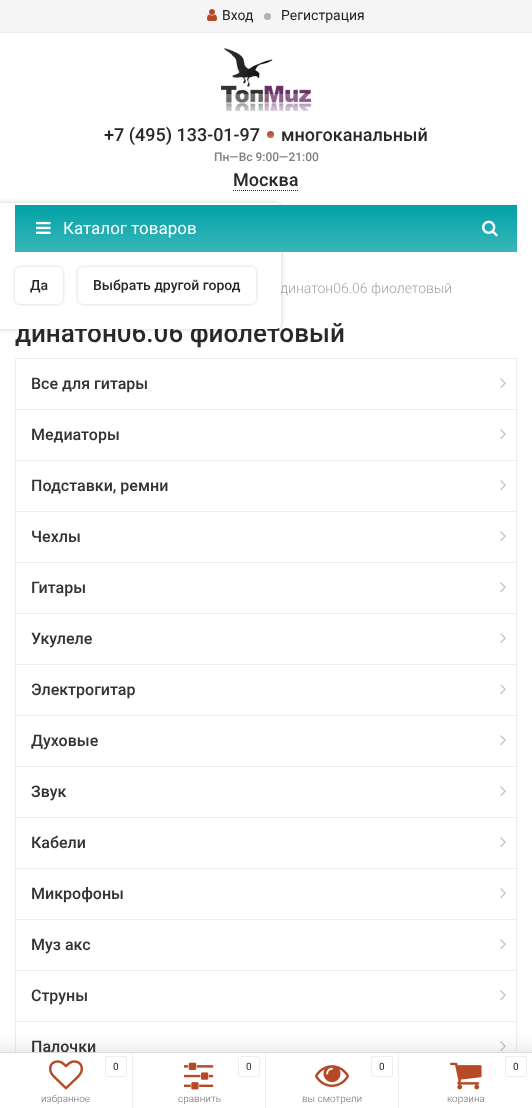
<!DOCTYPE html>
<meta charset="utf-8">
<style>body { margin: 0 } canvas { display: block }</style>
<canvas id="canvas" width="532" height="1108"></canvas>
<script type="module">
  const canvas = document.getElementById("canvas");
  const g = canvas.getContext("2d");
  g.miterLimit = 4;
  g.fontKerning = "normal";
  function drawText(s, x, y, [font, color]) {
    g.font = font;
    g.fillStyle = color;
    g.fillText(s, x, y);
  }
  function fillBox(x, y, w, h, color) {
    g.fillStyle = color;
    g.fillRect(x, y, w, h);
  }
  function fillRounded(x, y, w, h, r, color) {
    g.fillStyle = color;
    g.beginPath();
    g.roundRect(x, y, w, h, r);
    g.fill();
  }
  async function drawPicture(src, x, y, w, h) {
    const img = new Image();
    img.src = src;
    await img.decode();
    g.drawImage(img, x, y, w, h);
  }
  let gradient;

  const s1 = ["14px Roboto", "#222222"];
  const s2 = ["500 18px Roboto", "#282828"];
  const s3 = ["500 12px Roboto", "#7F7F7F"];
  const s4 = ["300 14px Roboto", "#A3A3A3"];
  const s5 = ["500 26px Roboto", "#282828"];
  const s6 = ["500 14px Roboto", "#282828"];
  const s7 = ["17px Roboto", "#FFFFFF"];
  const s8 = ["500 16px Roboto", "#333333"];
  const s9 = ["10px Roboto", "#222222"];
  const s10 = ["300 10px Roboto", "#6F6F6F"];

  fillBox(0, 0, 532, 1108, "#FFFFFF");
  fillBox(0, 0, 532, 32, "#F5F5F5");
  fillBox(0, 32, 532, 1, "#EAEAEA");
  await drawPicture("pic1.png", 207, 9, 10, 12);
  drawText("Вход", 222, 20, s1);
  g.fillStyle = "#ACB3B4";
  g.beginPath();
  g.arc(267.5, 16.5, 3.5, 0, Math.PI * 2);
  g.fill();
  drawText("Регистрация", 281, 20, s1);
  await drawPicture("pic2.png", 221, 48, 90, 63);
  drawText("+7 (495) 133-01-97", 104, 141, s2);
  g.fillStyle = "#B64926";
  g.beginPath();
  g.arc(270.5, 134.5, 3.5, 0, Math.PI * 2);
  g.fill();
  gradient = g.createLinearGradient(271, 131, 271, 138);
  gradient.addColorStop(0, "rgba(255, 255, 255, 0)");
  gradient.addColorStop(1, "rgba(255, 255, 255, 0.22)");
  g.fillStyle = gradient;
  g.beginPath();
  g.arc(270.5, 134.5, 3.5, 0, Math.PI * 2);
  g.fill();
  drawText("многоканальный", 281, 141, s2);
  drawText("Пн—Вс 9:00—21:00", 214, 161, s3);
  drawText("Москва", 233, 186, s2);
  g.beginPath();
  g.moveTo(233, 190.5);
  g.lineTo(299, 190.5);
  g.strokeStyle = "#282828";
  g.setLineDash([1, 1]);
  g.stroke();
  g.fillStyle = "rgba(0, 0, 0, 0.2)";
  g.filter = "blur(2.5px)";
  g.beginPath();
  g.roundRect(-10, 203, 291, 126, 5);
  g.fill();
  g.filter = "none";
  drawText("динатон06.06 фиолетовый", 280, 293, s4);
  drawText("динатон06.06 фиолетовый", 15, 342, s5);
  fillRounded(-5, 203, 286, 126, 5, "#FFFFFF");
  g.fillStyle = "rgba(0, 0, 0, 0.2)";
  g.filter = "blur(1.5px)";
  g.beginPath();
  g.roundRect(15, 267, 48, 37, 5);
  g.fill();
  g.filter = "none";
  fillRounded(15, 267, 48, 37, 5, "#FFFFFF");
  drawText("Да", 30, 290, s6);
  g.fillStyle = "rgba(0, 0, 0, 0.2)";
  g.filter = "blur(1.5px)";
  g.beginPath();
  g.roundRect(78, 267, 178, 37, 5);
  g.fill();
  g.filter = "none";
  fillRounded(78, 267, 178, 37, 5, "#FFFFFF");
  drawText("Выбрать другой город", 93, 290, s6);
  gradient = g.createLinearGradient(266, 205, 266, 252);
  gradient.addColorStop(0, "#01A2A6");
  gradient.addColorStop(1, "#39B6BA");
  g.fillStyle = gradient;
  g.fillRect(15, 205, 502, 47);
  await drawPicture("pic3.png", 36, 221, 15, 13);
  drawText("Каталог товаров", 63, 234, s7);
  await drawPicture("pic4.png", 482, 220, 16, 17);
  g.strokeStyle = "#EEEEEE";
  g.setLineDash([]);
  g.strokeRect(15.5, 358.5, 501, 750);
  fillBox(16, 409, 500, 1, "#EEEEEE");
  drawText("Все для гитары", 31, 389, s8);
  await drawPicture("pic5.png", 500, 378, 6, 10);
  fillBox(16, 460, 500, 1, "#EEEEEE");
  drawText("Медиаторы", 31, 440, s8);
  await drawPicture("pic5.png", 500, 429, 6, 10);
  fillBox(16, 511, 500, 1, "#EEEEEE");
  drawText("Подставки, ремни", 31, 491, s8);
  await drawPicture("pic5.png", 500, 480, 6, 10);
  fillBox(16, 562, 500, 1, "#EEEEEE");
  drawText("Чехлы", 31, 542, s8);
  await drawPicture("pic5.png", 500, 531, 6, 10);
  fillBox(16, 613, 500, 1, "#EEEEEE");
  drawText("Гитары", 31, 593, s8);
  await drawPicture("pic5.png", 500, 582, 6, 10);
  fillBox(16, 664, 500, 1, "#EEEEEE");
  drawText("Укулеле", 31, 644, s8);
  await drawPicture("pic5.png", 500, 633, 6, 10);
  fillBox(16, 715, 500, 1, "#EEEEEE");
  drawText("Электрогитар", 31, 695, s8);
  await drawPicture("pic5.png", 500, 684, 6, 10);
  fillBox(16, 766, 500, 1, "#EEEEEE");
  drawText("Духовые", 31, 746, s8);
  await drawPicture("pic5.png", 500, 735, 6, 10);
  fillBox(16, 817, 500, 1, "#EEEEEE");
  drawText("Звук", 31, 797, s8);
  await drawPicture("pic5.png", 500, 786, 6, 10);
  fillBox(16, 868, 500, 1, "#EEEEEE");
  drawText("Кабели", 31, 848, s8);
  await drawPicture("pic5.png", 500, 837, 6, 10);
  fillBox(16, 919, 500, 1, "#EEEEEE");
  drawText("Микрофоны", 31, 899, s8);
  await drawPicture("pic5.png", 500, 888, 6, 10);
  fillBox(16, 970, 500, 1, "#EEEEEE");
  drawText("Муз акс", 31, 950, s8);
  await drawPicture("pic5.png", 500, 939, 6, 10);
  fillBox(16, 1021, 500, 1, "#EEEEEE");
  drawText("Струны", 31, 1001, s8);
  await drawPicture("pic5.png", 500, 990, 6, 10);
  drawText("Палочки", 31, 1052, s8);
  await drawPicture("pic5.png", 500, 1041, 6, 10);
  g.fillStyle = "rgba(50, 50, 50, 0.15)";
  g.filter = "blur(10px)";
  g.beginPath();
  g.rect(-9, 1050, 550, 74);
  g.fill();
  g.filter = "none";
  fillBox(0, 1053, 532, 55, "#FFFFFF");
  fillBox(0, 1052, 532, 1, "#DBDBDB");
  fillBox(132, 1053, 1, 55, "#EDEDED");
  await drawPicture("pic6.png", 49, 1060, 34, 30);
  g.beginPath();
  g.roundRect(105.5, 1056.5, 21, 20, 1.5);
  g.stroke();
  drawText("0", 113, 1070, s9);
  drawText("избранное", 41, 1102, s10);
  fillBox(265, 1053, 1, 55, "#EDEDED");
  await drawPicture("pic7.png", 184, 1062, 30, 28);
  g.beginPath();
  g.roundRect(238.5, 1056.5, 21, 20, 1.5);
  g.stroke();
  drawText("0", 246, 1070, s9);
  drawText("сравнить", 178, 1102, s10);
  fillBox(398, 1053, 1, 55, "#EDEDED");
  await drawPicture("pic8.png", 315, 1065, 34, 22);
  g.beginPath();
  g.roundRect(371.5, 1056.5, 21, 20, 1.5);
  g.stroke();
  drawText("0", 379, 1070, s9);
  drawText("вы смотрели", 302, 1102, s10);
  await drawPicture("pic9.png", 450, 1062, 32, 28);
  g.beginPath();
  g.roundRect(505.5, 1056.5, 21, 20, 1.5);
  g.stroke();
  drawText("0", 513, 1070, s9);
  drawText("корзина", 447, 1102, s10);
</script>
